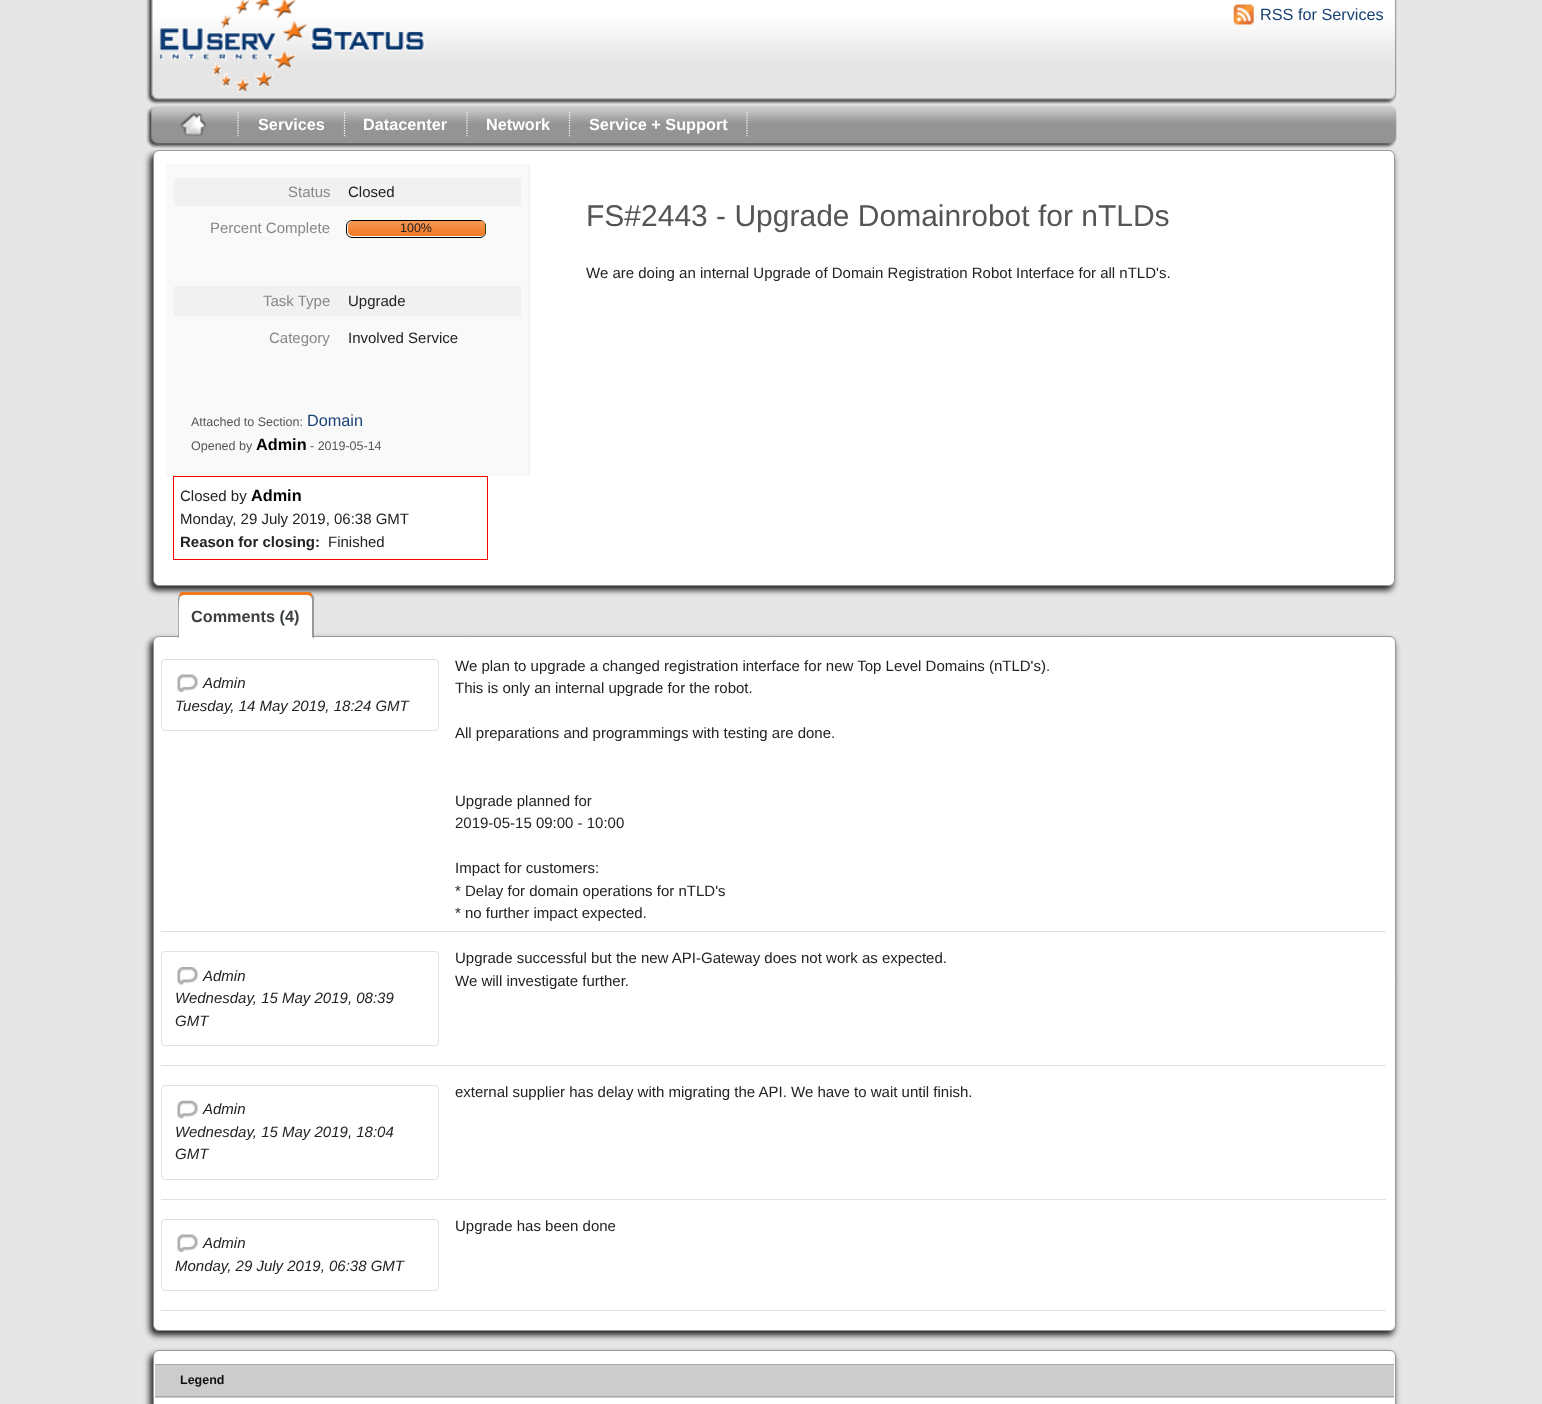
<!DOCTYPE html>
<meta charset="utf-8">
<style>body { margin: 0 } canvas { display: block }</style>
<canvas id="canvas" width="1542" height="1404"></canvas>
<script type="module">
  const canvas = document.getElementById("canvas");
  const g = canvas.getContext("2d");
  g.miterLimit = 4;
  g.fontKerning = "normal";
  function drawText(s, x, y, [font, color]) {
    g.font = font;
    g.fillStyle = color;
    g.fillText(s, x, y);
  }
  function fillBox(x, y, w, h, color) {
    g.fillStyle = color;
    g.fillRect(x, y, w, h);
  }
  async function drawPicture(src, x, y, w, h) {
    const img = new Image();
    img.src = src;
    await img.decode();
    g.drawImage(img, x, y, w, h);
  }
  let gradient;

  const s1 = ["16.25px Liberation Sans", "#194174"];
  const s2 = ["bold 16.25px Liberation Sans", "#FFFFFF"];
  const s3 = ["15px Liberation Sans", "#888888"];
  const s4 = ["15px Liberation Sans", "#222222"];
  const s5 = ["12.5px Liberation Sans", "#222222"];
  const s6 = ["12.5px Liberation Sans", "#555555"];
  const s7 = ["bold 16.25px Liberation Sans", "#000000"];
  const s8 = ["30px Liberation Sans", "#555555"];
  const s9 = ["bold 15px Liberation Sans", "#222222"];
  const s10 = ["bold 16.25px Liberation Sans", "#3C4041"];
  const s11 = ["italic 15px Liberation Sans", "#222222"];
  const s12 = ["bold 12.5px Liberation Sans", "#111111"];

  fillBox(0, 0, 1542, 1404, "#E6E6E6");
  await drawPicture("pic1.png", 146, 0, 1251, 105);
  await drawPicture("pic2.png", 159, 0, 266, 92);
  await drawPicture("pic3.png", 1233, 4, 21, 21);
  drawText("RSS for Services", 1260, 20, s1);
  g.fillStyle = "#1D1D1D";
  g.filter = "blur(3px)";
  g.beginPath();
  g.roundRect(150, 154, 1243, 436, 6);
  g.fill();
  g.filter = "none";
  fillBox(151, 148, 1241, 2, "#E5E5E5");
  await drawPicture("pic4.png", 146, 105, 1251, 44);
  g.beginPath();
  g.moveTo(238, 112.5);
  g.lineTo(238, 137.5);
  g.strokeStyle = "#FFFFFF";
  g.lineWidth = 1.2;
  g.setLineDash([1.25, 1.25]);
  g.stroke();
  await drawPicture("pic5.png", 180, 112, 27, 24);
  g.beginPath();
  g.moveTo(344.5, 112.5);
  g.lineTo(344.5, 137.5);
  g.stroke();
  drawText("Services", 258, 130, s2);
  g.beginPath();
  g.moveTo(467, 112.5);
  g.lineTo(467, 137.5);
  g.stroke();
  drawText("Datacenter", 363, 130, s2);
  g.beginPath();
  g.moveTo(569.5, 112.5);
  g.lineTo(569.5, 137.5);
  g.stroke();
  drawText("Network", 486, 130, s2);
  g.beginPath();
  g.moveTo(747, 112.5);
  g.lineTo(747, 137.5);
  g.stroke();
  drawText("Service + Support", 589, 130, s2);
  g.beginPath();
  g.roundRect(153.5, 150.5, 1241, 435, 5.5);
  g.fill();
  g.strokeStyle = "#999999";
  g.lineWidth = 1;
  g.setLineDash([]);
  g.stroke();
  fillBox(166, 164, 363, 312, "#F9F9F9");
  fillBox(529, 164, 1, 312, "#EEEEEE");
  fillBox(174, 178, 347, 28, "#F1F1F1");
  drawText("Status", 288, 197, s3);
  drawText("Closed", 348, 197, s4);
  drawText("Percent Complete", 210, 233, s3);
  g.beginPath();
  g.roundRect(346.5, 220.5, 139, 17, 5.5);
  g.strokeStyle = "#000000";
  g.stroke();
  gradient = g.createLinearGradient(416, 221, 416, 236);
  gradient.addColorStop(0, "#F69754");
  gradient.addColorStop(1, "#F27822");
  g.fillStyle = gradient;
  g.beginPath();
  g.roundRect(348, 221, 138, 15, 5);
  g.fill();
  fillBox(485, 224, 1, 10, "#2D4713");
  drawText("100%", 400, 232, s5);
  fillBox(174, 286, 347, 30, "#F1F1F1");
  drawText("Task Type", 263, 306, s3);
  drawText("Upgrade", 348, 306, s4);
  drawText("Category", 269, 343, s3);
  drawText("Involved Service", 348, 343, s4);
  drawText("Attached to Section:", 191, 426, s6);
  drawText("Domain", 307, 426, s1);
  drawText("Opened by", 191, 450, s6);
  drawText("Admin", 256, 450, s7);
  drawText("- 2019-05-14", 310, 450, s6);
  drawText("FS#2443 - Upgrade Domainrobot for nTLDs", 586, 226, s8);
  drawText("We are doing an internal Upgrade of Domain Registration Robot Interface for all nTLD's.", 586, 278, s4);
  g.strokeStyle = "#FF0000";
  g.strokeRect(173.5, 476.5, 314, 83);
  drawText("Closed by", 180, 501, s4);
  drawText("Admin", 251, 501, s7);
  drawText("Monday, 29 July 2019, 06:38 GMT", 180, 524, s4);
  drawText("Reason for closing:", 180, 547, s9);
  drawText("Finished", 328, 547, s4);
  g.fillStyle = "#1D1D1D";
  g.filter = "blur(3px)";
  g.beginPath();
  g.roundRect(150, 640, 1244, 695, 6);
  g.fill();
  g.filter = "none";
  g.fillStyle = "#FFFFFF";
  g.beginPath();
  g.roundRect(153.5, 636.5, 1242, 694, 5.5);
  g.fill();
  g.strokeStyle = "#999999";
  g.stroke();
  g.beginPath();
  g.moveTo(184, 595);
  g.lineTo(308, 595);
  g.bezierCurveTo(310, 595, 312, 597, 312, 599);
  g.lineTo(312, 638);
  g.lineTo(179, 638);
  g.lineTo(179, 599);
  g.bezierCurveTo(179, 597, 181, 595, 184, 595);
  g.closePath();
  g.fill();
  g.fillStyle = "#F27822";
  g.beginPath();
  g.moveTo(184, 595);
  g.bezierCurveTo(182, 595, 181, 596, 180, 597);
  g.lineTo(179, 595);
  g.lineTo(181, 592);
  g.lineTo(310, 592);
  g.lineTo(313, 595);
  g.lineTo(311, 597);
  g.bezierCurveTo(311, 596, 309, 595, 308, 595);
  g.closePath();
  g.fill();
  g.fillStyle = "#999999";
  g.beginPath();
  g.moveTo(313, 595);
  g.lineTo(314, 597);
  g.lineTo(314, 639);
  g.lineTo(312, 637);
  g.lineTo(312, 599);
  g.lineTo(311, 597);
  g.closePath();
  g.fill();
  g.fillStyle = "#FFFFFF";
  g.beginPath();
  g.moveTo(314, 639);
  g.lineTo(178, 639);
  g.lineTo(179, 637);
  g.lineTo(179, 638);
  g.lineTo(312, 638);
  g.lineTo(312, 637);
  g.closePath();
  g.fill();
  g.fillStyle = "#999999";
  g.beginPath();
  g.moveTo(178, 638);
  g.lineTo(178, 599);
  g.lineTo(179, 595);
  g.lineTo(180, 597);
  g.bezierCurveTo(178, 599, 179, 632, 179, 637);
  g.closePath();
  g.fill();
  drawText("Comments (4)", 191, 622, s10);
  fillBox(161, 931, 1225, 1, "#E1E1E1");
  g.beginPath();
  g.roundRect(161.5, 659.5, 277, 71, 3.5);
  g.strokeStyle = "#E1E1E1";
  g.stroke();
  await drawPicture("pic6.png", 177, 674, 21, 18);
  drawText("Admin", 203, 688, s11);
  drawText("Tuesday, 14 May 2019, 18:24 GMT", 175, 711, s11);
  drawText("We plan to upgrade a changed registration interface for new Top Level Domains (nTLD's).", 455, 671, s4);
  drawText("This is only an internal upgrade for the robot.", 455, 693, s4);
  drawText("All preparations and programmings with testing are done.", 455, 738, s4);
  drawText("Upgrade planned for", 455, 806, s4);
  drawText("2019-05-15 09:00 - 10:00", 455, 828, s4);
  drawText("Impact for customers:", 455, 873, s4);
  drawText("* Delay for domain operations for nTLD's", 455, 896, s4);
  drawText("* no further impact expected.", 455, 918, s4);
  fillBox(161, 1065, 1225, 1, "#E1E1E1");
  g.beginPath();
  g.roundRect(161.5, 951.5, 277, 94, 3.5);
  g.stroke();
  await drawPicture("pic7.png", 177, 967, 21, 18);
  drawText("Admin", 203, 981, s11);
  drawText("Wednesday, 15 May 2019, 08:39", 175, 1003, s11);
  drawText("GMT", 175, 1026, s11);
  drawText("Upgrade successful but the new API-Gateway does not work as expected.", 455, 963, s4);
  drawText("We will investigate further.", 455, 986, s4);
  fillBox(161, 1199, 1225, 1, "#E1E1E1");
  drawText("external supplier has delay with migrating the API. We have to wait until finish.", 455, 1097, s4);
  g.beginPath();
  g.roundRect(161.5, 1085.5, 277, 94, 3.5);
  g.stroke();
  await drawPicture("pic8.png", 177, 1100, 21, 19);
  drawText("Admin", 203, 1114, s11);
  drawText("Wednesday, 15 May 2019, 18:04", 175, 1137, s11);
  drawText("GMT", 175, 1159, s11);
  fillBox(161, 1310, 1225, 1, "#E1E1E1");
  drawText("Upgrade has been done", 455, 1231, s4);
  g.beginPath();
  g.roundRect(161.5, 1219.5, 277, 71, 3.5);
  g.stroke();
  await drawPicture("pic6.png", 177, 1234, 21, 18);
  drawText("Admin", 203, 1248, s11);
  drawText("Monday, 29 July 2019, 06:38 GMT", 175, 1271, s11);
  g.fillStyle = "#1D1D1D";
  g.filter = "blur(3px)";
  g.beginPath();
  g.roundRect(150, 1354, 1244, 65, 6);
  g.fill();
  g.filter = "none";
  g.fillStyle = "#FFFFFF";
  g.beginPath();
  g.roundRect(153.5, 1350.5, 1242, 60, 5.5);
  g.fill();
  g.strokeStyle = "#999999";
  g.stroke();
  fillBox(155, 1365, 1239, 33, "#CCCCCC");
  fillBox(155, 1364, 1239, 1, "#A1A6A8");
  fillBox(155, 1396, 1239, 1, "#A1A6A8");
  drawText("Legend", 180, 1384, s12);
</script>
